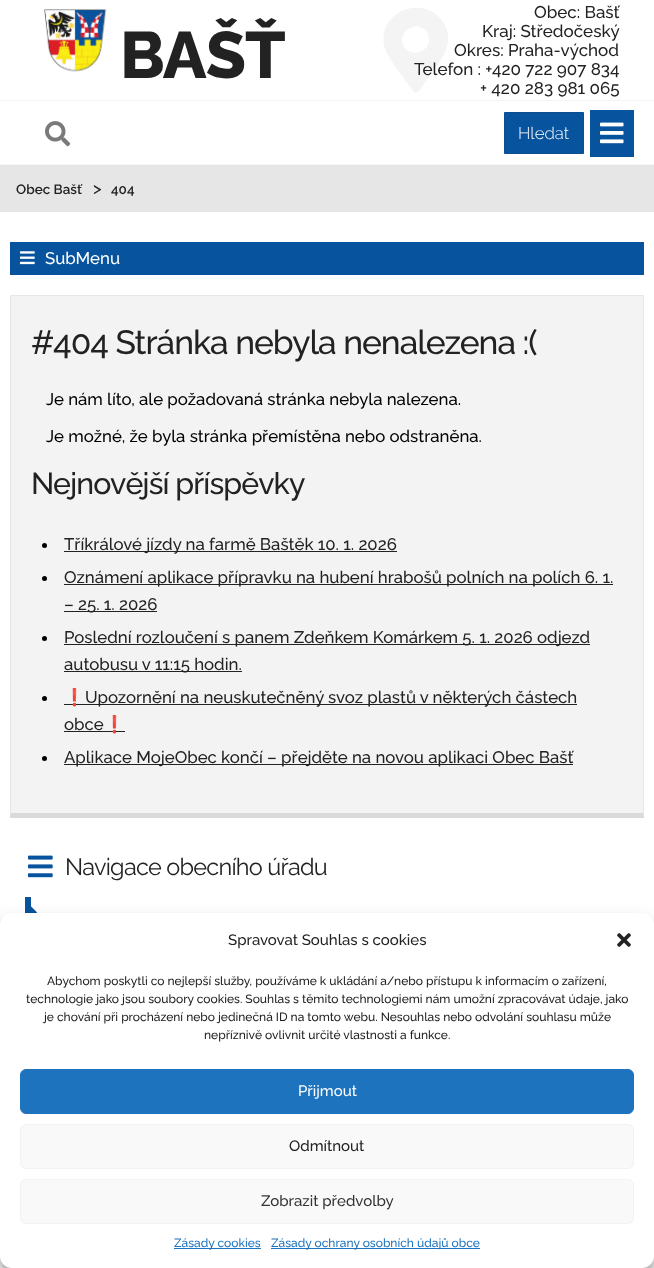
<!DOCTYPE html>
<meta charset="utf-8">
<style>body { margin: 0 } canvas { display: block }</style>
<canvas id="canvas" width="654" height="1268"></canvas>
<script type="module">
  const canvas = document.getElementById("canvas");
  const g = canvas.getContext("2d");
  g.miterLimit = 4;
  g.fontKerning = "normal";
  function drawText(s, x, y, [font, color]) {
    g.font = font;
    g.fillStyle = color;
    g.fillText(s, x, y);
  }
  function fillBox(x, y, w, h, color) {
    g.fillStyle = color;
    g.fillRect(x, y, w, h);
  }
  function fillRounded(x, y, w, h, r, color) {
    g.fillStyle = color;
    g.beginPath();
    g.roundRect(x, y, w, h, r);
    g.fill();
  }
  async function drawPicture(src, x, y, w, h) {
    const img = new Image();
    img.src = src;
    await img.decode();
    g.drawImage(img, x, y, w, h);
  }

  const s1 = ["800 65.5px Raleway", "#222222"];
  const s2 = ["500 17px Raleway", "#222222"];
  const s3 = ["300 16.8px Raleway", "#FFFFFF"];
  const s4 = ["600 13.5px Raleway", "#222222"];
  const s5 = ["500 16.8px Raleway", "#222222"];
  const s6 = ["500 16.8px Raleway", "#FFFFFF"];
  const s7 = ["500 33.6px Raleway", "#222222"];
  const s8 = ["500 16.8px Raleway", "#000000"];
  const s9 = ["500 30.25px Raleway", "#222222"];
  const s10 = ["16.8px Noto Color Emoji", "#222222"];
  const s11 = ["23.5px Raleway", "#222222"];
  const s12 = ["500 15px Raleway", "#222222"];
  const s13 = ["500 12px Raleway", "#222222"];
  const s14 = ["500 15px Raleway", "#FFFFFF"];
  const s15 = ["500 15px Raleway", "#333333"];
  const s16 = ["500 12px Raleway", "#1E73BE"];

  fillBox(0, 0, 654, 1268, "#FFFFFF");
  await drawPicture("pic1.png", 44, 9, 63, 63);
  g.letterSpacing = "-1px";
  drawText("BAŠŤ", 120, 78, s1);
  g.fillStyle = "rgba(34, 34, 34, 0.05)";
  g.beginPath();
  g.moveTo(413, 91);
  g.lineTo(399, 72);
  g.bezierCurveTo(394, 64, 386, 55, 384, 45);
  g.bezierCurveTo(378, 12, 423, -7, 443, 22);
  g.bezierCurveTo(457, 43, 440, 61, 428, 78);
  g.bezierCurveTo(426, 80, 420, 91, 418, 92);
  g.bezierCurveTo(416, 93, 414, 93, 413, 91);
  g.closePath();
  g.moveTo(406, 49);
  g.bezierCurveTo(419, 61, 438, 42, 425, 30);
  g.bezierCurveTo(413, 18, 394, 37, 406, 49);
  g.closePath();
  g.fill();
  g.letterSpacing = "0px";
  drawText("Obec: Bašť", 534, 18, s2);
  drawText("Kraj: Středočeský", 482, 37, s2);
  drawText("Okres: Praha-východ", 454, 56, s2);
  drawText("Telefon : +420 722 907 834", 414, 75, s2);
  drawText("+ 420 283 981 065", 480, 94, s2);
  await drawPicture("pic2.png", 45, 121, 26, 26);
  g.fillStyle = "#08539E";
  g.beginPath();
  g.rect(504.5, 112.5, 79, 41);
  g.fill();
  g.strokeStyle = "#0B4E92";
  g.stroke();
  drawText("Hledat", 518, 139, s3);
  fillBox(0, 100, 654, 1, "#F4F4F4");
  fillBox(0, 164, 654, 1, "#F4F4F4");
  fillBox(590, 110, 44, 47, "#08539E");
  await drawPicture("pic3.png", 600, 122, 24, 22);
  fillBox(0, 165, 654, 47, "#E6E6E6");
  drawText("Obec Bašť", 16, 194, s4);
  drawText(">", 93, 194, s5);
  drawText("404", 111, 194, s4);
  fillBox(10, 242, 634, 33, "#08539E");
  await drawPicture("pic4.png", 20, 251, 15, 14);
  drawText("SubMenu", 45, 264, s6);
  fillBox(10, 295, 634, 523, "#F3F3F3");
  g.fillStyle = "#E7E7E7";
  g.beginPath();
  g.moveTo(10, 295);
  g.lineTo(644, 295);
  g.lineTo(643, 296);
  g.lineTo(11, 296);
  g.closePath();
  g.fill();
  g.fillStyle = "rgba(0, 0, 0, 0.05)";
  g.beginPath();
  g.moveTo(644, 295);
  g.lineTo(644, 818);
  g.lineTo(643, 813);
  g.lineTo(643, 296);
  g.closePath();
  g.fill();
  g.fillStyle = "rgba(0, 0, 0, 0.1)";
  g.beginPath();
  g.moveTo(644, 818);
  g.lineTo(10, 818);
  g.lineTo(11, 813);
  g.lineTo(643, 813);
  g.closePath();
  g.fill();
  g.fillStyle = "rgba(0, 0, 0, 0.05)";
  g.beginPath();
  g.moveTo(10, 818);
  g.lineTo(10, 295);
  g.lineTo(11, 296);
  g.lineTo(11, 813);
  g.closePath();
  g.fill();
  g.letterSpacing = "-1px";
  drawText("#404 Stránka nebyla nenalezena :(", 31, 354, s7);
  g.letterSpacing = "0px";
  drawText("Je nám líto, ale požadovaná stránka nebyla nalezena.", 46, 405, s8);
  drawText("Je možné, že byla stránka přemístěna nebo odstraněna.", 46, 442, s8);
  g.letterSpacing = "-0.9px";
  drawText("Nejnovější příspěvky", 31, 494, s9);
  g.fillStyle = "#000000";
  g.beginPath();
  g.arc(44.5, 545.5, 2.5, 0, Math.PI * 2);
  g.fill();
  fillBox(64, 551, 333, 1, "#222222");
  g.letterSpacing = "0px";
  drawText("Tříkrálové jízdy na farmě Baštěk 10. 1. 2026", 64, 550, s5);
  g.fillStyle = "#000000";
  g.beginPath();
  g.arc(44.5, 578.5, 2.5, 0, Math.PI * 2);
  g.fill();
  fillBox(64, 584, 549, 1, "#222222");
  drawText("Oznámení aplikace přípravku na hubení hrabošů polních na polích 6. 1.", 64, 583, s5);
  fillBox(64, 611, 93, 1, "#222222");
  drawText("– 25. 1. 2026", 64, 610, s5);
  g.fillStyle = "#000000";
  g.beginPath();
  g.arc(44.5, 638.5, 2.5, 0, Math.PI * 2);
  g.fill();
  fillBox(64, 644, 526, 1, "#222222");
  drawText("Poslední rozloučení s panem Zdeňkem Komárkem 5. 1. 2026 odjezd", 64, 643, s5);
  fillBox(64, 671, 178, 1, "#222222");
  drawText("autobusu v 11:15 hodin.", 64, 670, s5);
  g.fillStyle = "#000000";
  g.beginPath();
  g.arc(44.5, 698.5, 2.5, 0, Math.PI * 2);
  g.fill();
  fillBox(64, 704, 513, 1, "#222222");
  drawText("❗️", 64, 703, s10);
  drawText("Upozornění na neuskutečněný svoz plastů v některých částech", 85, 703, s5);
  drawText("obce", 64, 730, s5);
  fillBox(64, 731, 61, 1, "#222222");
  drawText("❗️", 104, 730, s10);
  g.fillStyle = "#000000";
  g.beginPath();
  g.arc(44.5, 758.5, 2.5, 0, Math.PI * 2);
  g.fill();
  fillBox(64, 764, 509, 1, "#222222");
  drawText("Aplikace MojeObec končí – přejděte na novou aplikaci Obec Bašť", 64, 763, s5);
  await drawPicture("pic5.png", 28, 855, 25, 23);
  g.letterSpacing = "-0.75px";
  drawText("Navigace obecního úřadu", 65, 875, s11);
  g.fillStyle = "#08539E";
  g.beginPath();
  g.moveTo(25, 930);
  g.lineTo(25, 897);
  g.lineTo(31, 897);
  g.lineTo(31, 929);
  g.closePath();
  g.fill();
  await drawPicture("pic6.png", 31, 906, 6, 7);
  g.fillStyle = "rgba(0, 0, 0, 0.23)";
  g.filter = "blur(3px)";
  g.beginPath();
  g.roundRect(0, 919, 654, 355, 12);
  g.fill();
  g.filter = "none";
  g.fillStyle = "rgba(0, 0, 0, 0.19)";
  g.filter = "blur(10px)";
  g.beginPath();
  g.roundRect(0, 923, 654, 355, 12);
  g.fill();
  g.filter = "none";
  fillRounded(0, 913, 654, 355, 12, "#FFFFFF");
  g.letterSpacing = "0px";
  drawText("Spravovat Souhlas s cookies", 228, 945, s12);
  await drawPicture("pic7.png", 617, 933, 14, 14);
  drawText("Abychom poskytli co nejlepší služby, používáme k ukládání a/nebo přístupu k informacím o zařízení,", 47, 985, s13);
  drawText("technologie jako jsou soubory cookies. Souhlas s těmito technologiemi nám umožní zpracovávat údaje, jako", 26, 1003, s13);
  drawText("je chování při procházení nebo jedinečná ID na tomto webu. Nesouhlas nebo odvolání souhlasu může", 44, 1021, s13);
  drawText("nepříznivě ovlivnit určité vlastnosti a funkce.", 204, 1039, s13);
  g.fillStyle = "#1E73BE";
  g.beginPath();
  g.roundRect(20.5, 1069.5, 613, 44, 5.5);
  g.fill();
  g.strokeStyle = "#1E73BE";
  g.stroke();
  drawText("Přijmout", 298, 1096, s14);
  g.fillStyle = "#F9F9F9";
  g.beginPath();
  g.roundRect(20.5, 1124.5, 613, 44, 5.5);
  g.fill();
  g.strokeStyle = "#F2F2F2";
  g.stroke();
  drawText("Odmítnout", 289, 1151, s12);
  g.fillStyle = "#F9F9F9";
  g.beginPath();
  g.roundRect(20.5, 1179.5, 613, 44, 5.5);
  g.fill();
  g.stroke();
  drawText("Zobrazit předvolby", 261, 1206, s15);
  fillBox(174, 1248, 87, 1, "#1E73BE");
  drawText("Zásady cookies", 174, 1247, s16);
  fillBox(271, 1248, 209, 1, "#1E73BE");
  drawText("Zásady ochrany osobních údajů obce", 271, 1247, s16);
</script>
